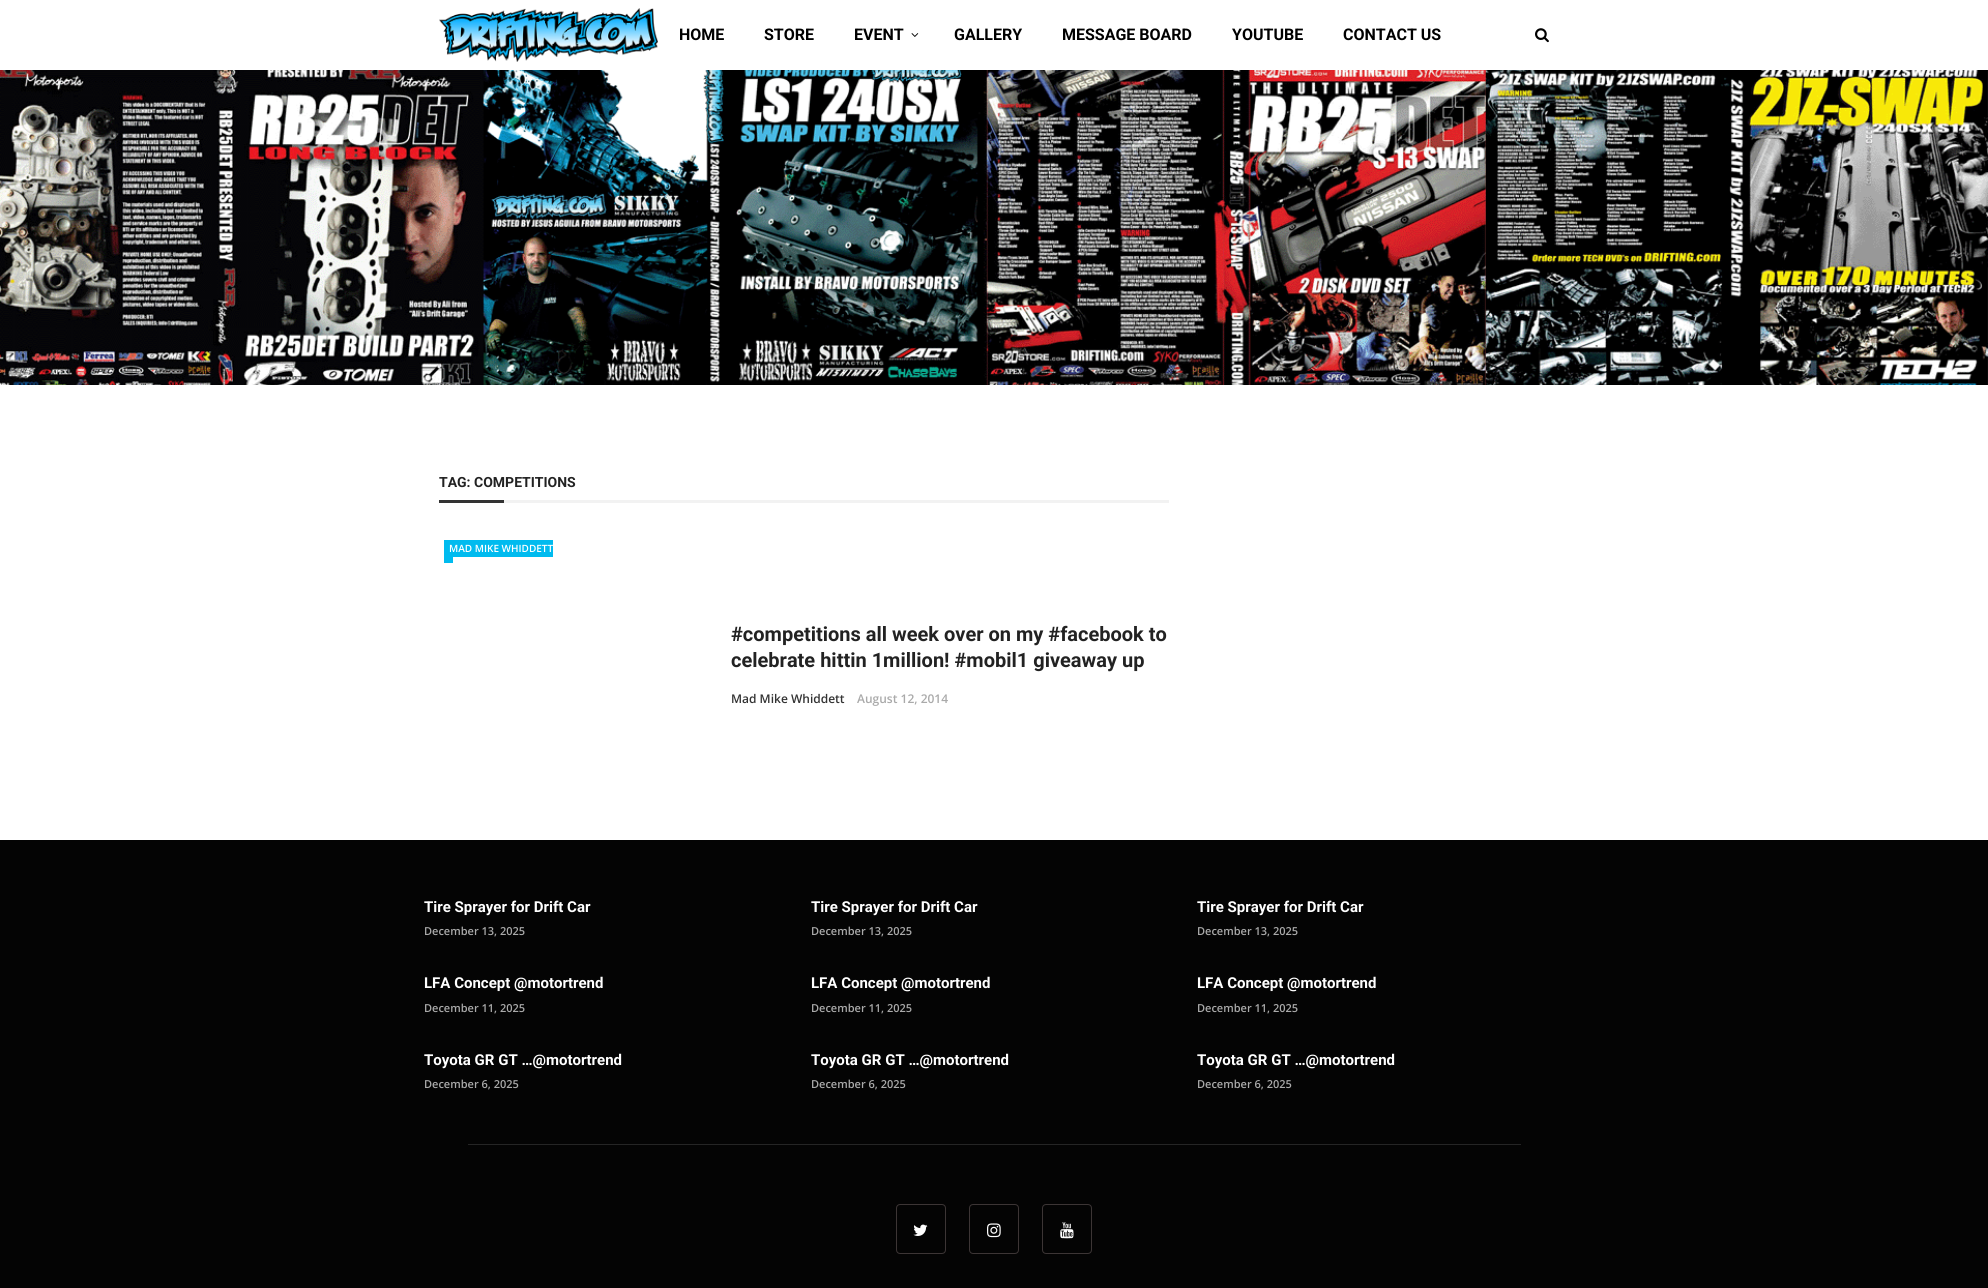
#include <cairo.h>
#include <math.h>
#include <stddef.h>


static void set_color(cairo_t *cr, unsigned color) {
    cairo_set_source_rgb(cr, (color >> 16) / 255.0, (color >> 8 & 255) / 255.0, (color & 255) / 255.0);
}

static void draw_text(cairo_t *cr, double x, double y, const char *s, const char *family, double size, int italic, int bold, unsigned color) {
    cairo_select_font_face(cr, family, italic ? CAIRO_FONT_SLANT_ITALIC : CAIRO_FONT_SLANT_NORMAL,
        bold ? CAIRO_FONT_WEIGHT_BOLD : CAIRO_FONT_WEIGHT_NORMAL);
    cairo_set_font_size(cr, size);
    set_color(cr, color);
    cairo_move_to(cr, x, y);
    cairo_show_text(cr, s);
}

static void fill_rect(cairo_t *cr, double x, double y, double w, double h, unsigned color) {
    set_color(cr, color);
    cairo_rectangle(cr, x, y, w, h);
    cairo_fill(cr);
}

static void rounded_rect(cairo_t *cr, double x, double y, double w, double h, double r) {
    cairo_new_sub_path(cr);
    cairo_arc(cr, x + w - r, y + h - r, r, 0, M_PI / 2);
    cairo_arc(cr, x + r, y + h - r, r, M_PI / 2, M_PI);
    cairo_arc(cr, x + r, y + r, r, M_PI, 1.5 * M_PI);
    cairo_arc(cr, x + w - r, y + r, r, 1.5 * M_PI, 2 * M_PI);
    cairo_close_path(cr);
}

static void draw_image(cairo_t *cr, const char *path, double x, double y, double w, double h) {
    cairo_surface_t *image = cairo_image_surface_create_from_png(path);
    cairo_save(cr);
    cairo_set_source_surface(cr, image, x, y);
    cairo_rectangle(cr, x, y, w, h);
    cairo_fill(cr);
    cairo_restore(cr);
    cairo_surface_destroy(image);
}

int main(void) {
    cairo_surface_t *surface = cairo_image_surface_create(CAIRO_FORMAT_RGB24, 1988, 1288);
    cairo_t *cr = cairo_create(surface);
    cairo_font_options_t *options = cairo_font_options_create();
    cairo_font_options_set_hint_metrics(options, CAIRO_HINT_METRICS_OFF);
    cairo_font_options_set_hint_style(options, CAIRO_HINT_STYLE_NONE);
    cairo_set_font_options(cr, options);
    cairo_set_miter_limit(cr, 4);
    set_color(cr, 0xFFFFFF);
    cairo_paint(cr);
    draw_image(cr, "assets/img1.png", 439, 8, 219, 54);
    draw_text(cr, 679, 40, "HOME", "Roboto", 16, 0, 1, 0x000000);
    draw_text(cr, 764, 40, "STORE", "Roboto", 16, 0, 1, 0x000000);
    draw_text(cr, 854, 40, "EVENT", "Roboto", 16, 0, 1, 0x000000);
    draw_image(cr, "assets/img2.png", 911, 33, 8, 4);
    draw_text(cr, 954, 40, "GALLERY", "Roboto", 16, 0, 1, 0x000000);
    draw_text(cr, 1062, 40, "MESSAGE BOARD", "Roboto", 16, 0, 1, 0x000000);
    draw_text(cr, 1232, 40, "YOUTUBE", "Roboto", 16, 0, 1, 0x000000);
    draw_text(cr, 1343, 40, "CONTACT US", "Roboto", 16, 0, 1, 0x000000);
    draw_image(cr, "assets/img3.png", 1535, 28, 14, 15);
    draw_image(cr, "assets/img4.png", 0, 70, 1988, 315);
    fill_rect(cr, 504, 500, 665, 3, 0xF2F2F2);
    draw_text(cr, 439, 487, "TAG: COMPETITIONS", "Roboto", 14, 0, 1, 0x222222);
    fill_rect(cr, 439, 500, 65, 3, 0x333333);
    fill_rect(cr, 444, 540, 109, 17, 0x00BBEF);
    draw_text(cr, 449, 552, "MAD MIKE WHIDDETT", "Open Sans SemiBold", 10, 0, 0, 0xFFFFFF);
    fill_rect(cr, 444, 557, 9, 6, 0x00BBEF);
    draw_text(cr, 731, 641, "#competitions all week over on my #facebook to", "Roboto", 20, 0, 1, 0x222222);
    draw_text(cr, 731, 667, "celebrate hittin 1million! #mobil1 giveaway up", "Roboto", 20, 0, 1, 0x222222);
    draw_text(cr, 731, 703, "Mad Mike Whiddett", "Open Sans SemiBold", 12, 0, 0, 0x333333);
    draw_text(cr, 857, 703, "August 12, 2014", "Open Sans SemiBold", 12, 0, 0, 0xAAAAAA);
    fill_rect(cr, 0, 840, 1988, 448, 0x040404);
    draw_text(cr, 424, 912, "Tire Sprayer for Drift Car", "Roboto", 15, 0, 1, 0xFFFFFF);
    draw_text(cr, 424, 935, "December 13, 2025", "Open Sans SemiBold", 11, 0, 0, 0xAAAAAA);
    draw_text(cr, 424, 988, "LFA Concept @motortrend", "Roboto", 15, 0, 1, 0xFFFFFF);
    draw_text(cr, 424, 1012, "December 11, 2025", "Open Sans SemiBold", 11, 0, 0, 0xAAAAAA);
    draw_text(cr, 424, 1065, "Toyota GR GT …@motortrend", "Roboto", 15, 0, 1, 0xFFFFFF);
    draw_text(cr, 424, 1088, "December 6, 2025", "Open Sans SemiBold", 11, 0, 0, 0xAAAAAA);
    draw_text(cr, 811, 912, "Tire Sprayer for Drift Car", "Roboto", 15, 0, 1, 0xFFFFFF);
    draw_text(cr, 811, 935, "December 13, 2025", "Open Sans SemiBold", 11, 0, 0, 0xAAAAAA);
    draw_text(cr, 811, 988, "LFA Concept @motortrend", "Roboto", 15, 0, 1, 0xFFFFFF);
    draw_text(cr, 811, 1012, "December 11, 2025", "Open Sans SemiBold", 11, 0, 0, 0xAAAAAA);
    draw_text(cr, 811, 1065, "Toyota GR GT …@motortrend", "Roboto", 15, 0, 1, 0xFFFFFF);
    draw_text(cr, 811, 1088, "December 6, 2025", "Open Sans SemiBold", 11, 0, 0, 0xAAAAAA);
    draw_text(cr, 1197, 912, "Tire Sprayer for Drift Car", "Roboto", 15, 0, 1, 0xFFFFFF);
    draw_text(cr, 1197, 935, "December 13, 2025", "Open Sans SemiBold", 11, 0, 0, 0xAAAAAA);
    draw_text(cr, 1197, 988, "LFA Concept @motortrend", "Roboto", 15, 0, 1, 0xFFFFFF);
    draw_text(cr, 1197, 1012, "December 11, 2025", "Open Sans SemiBold", 11, 0, 0, 0xAAAAAA);
    draw_text(cr, 1197, 1065, "Toyota GR GT …@motortrend", "Roboto", 15, 0, 1, 0xFFFFFF);
    draw_text(cr, 1197, 1088, "December 6, 2025", "Open Sans SemiBold", 11, 0, 0, 0xAAAAAA);
    fill_rect(cr, 468, 1144, 1053, 1, 0x252525);
    rounded_rect(cr, 896.5, 1204.5, 49, 49, 3.5);
    set_color(cr, 0x3C3535);
    cairo_set_line_width(cr, 1);
    cairo_stroke(cr);
    draw_image(cr, "assets/img5.png", 913, 1224, 15, 12);
    rounded_rect(cr, 969.5, 1204.5, 49, 49, 3.5);
    cairo_stroke(cr);
    draw_image(cr, "assets/img6.png", 987, 1223, 14, 15);
    rounded_rect(cr, 1042.5, 1204.5, 49, 49, 3.5);
    cairo_stroke(cr);
    draw_image(cr, "assets/img7.png", 1060, 1222, 14, 17);
    cairo_surface_write_to_png(surface, "output.png");
    cairo_font_options_destroy(options);
    cairo_destroy(cr);
    cairo_surface_destroy(surface);
    return 0;
}
